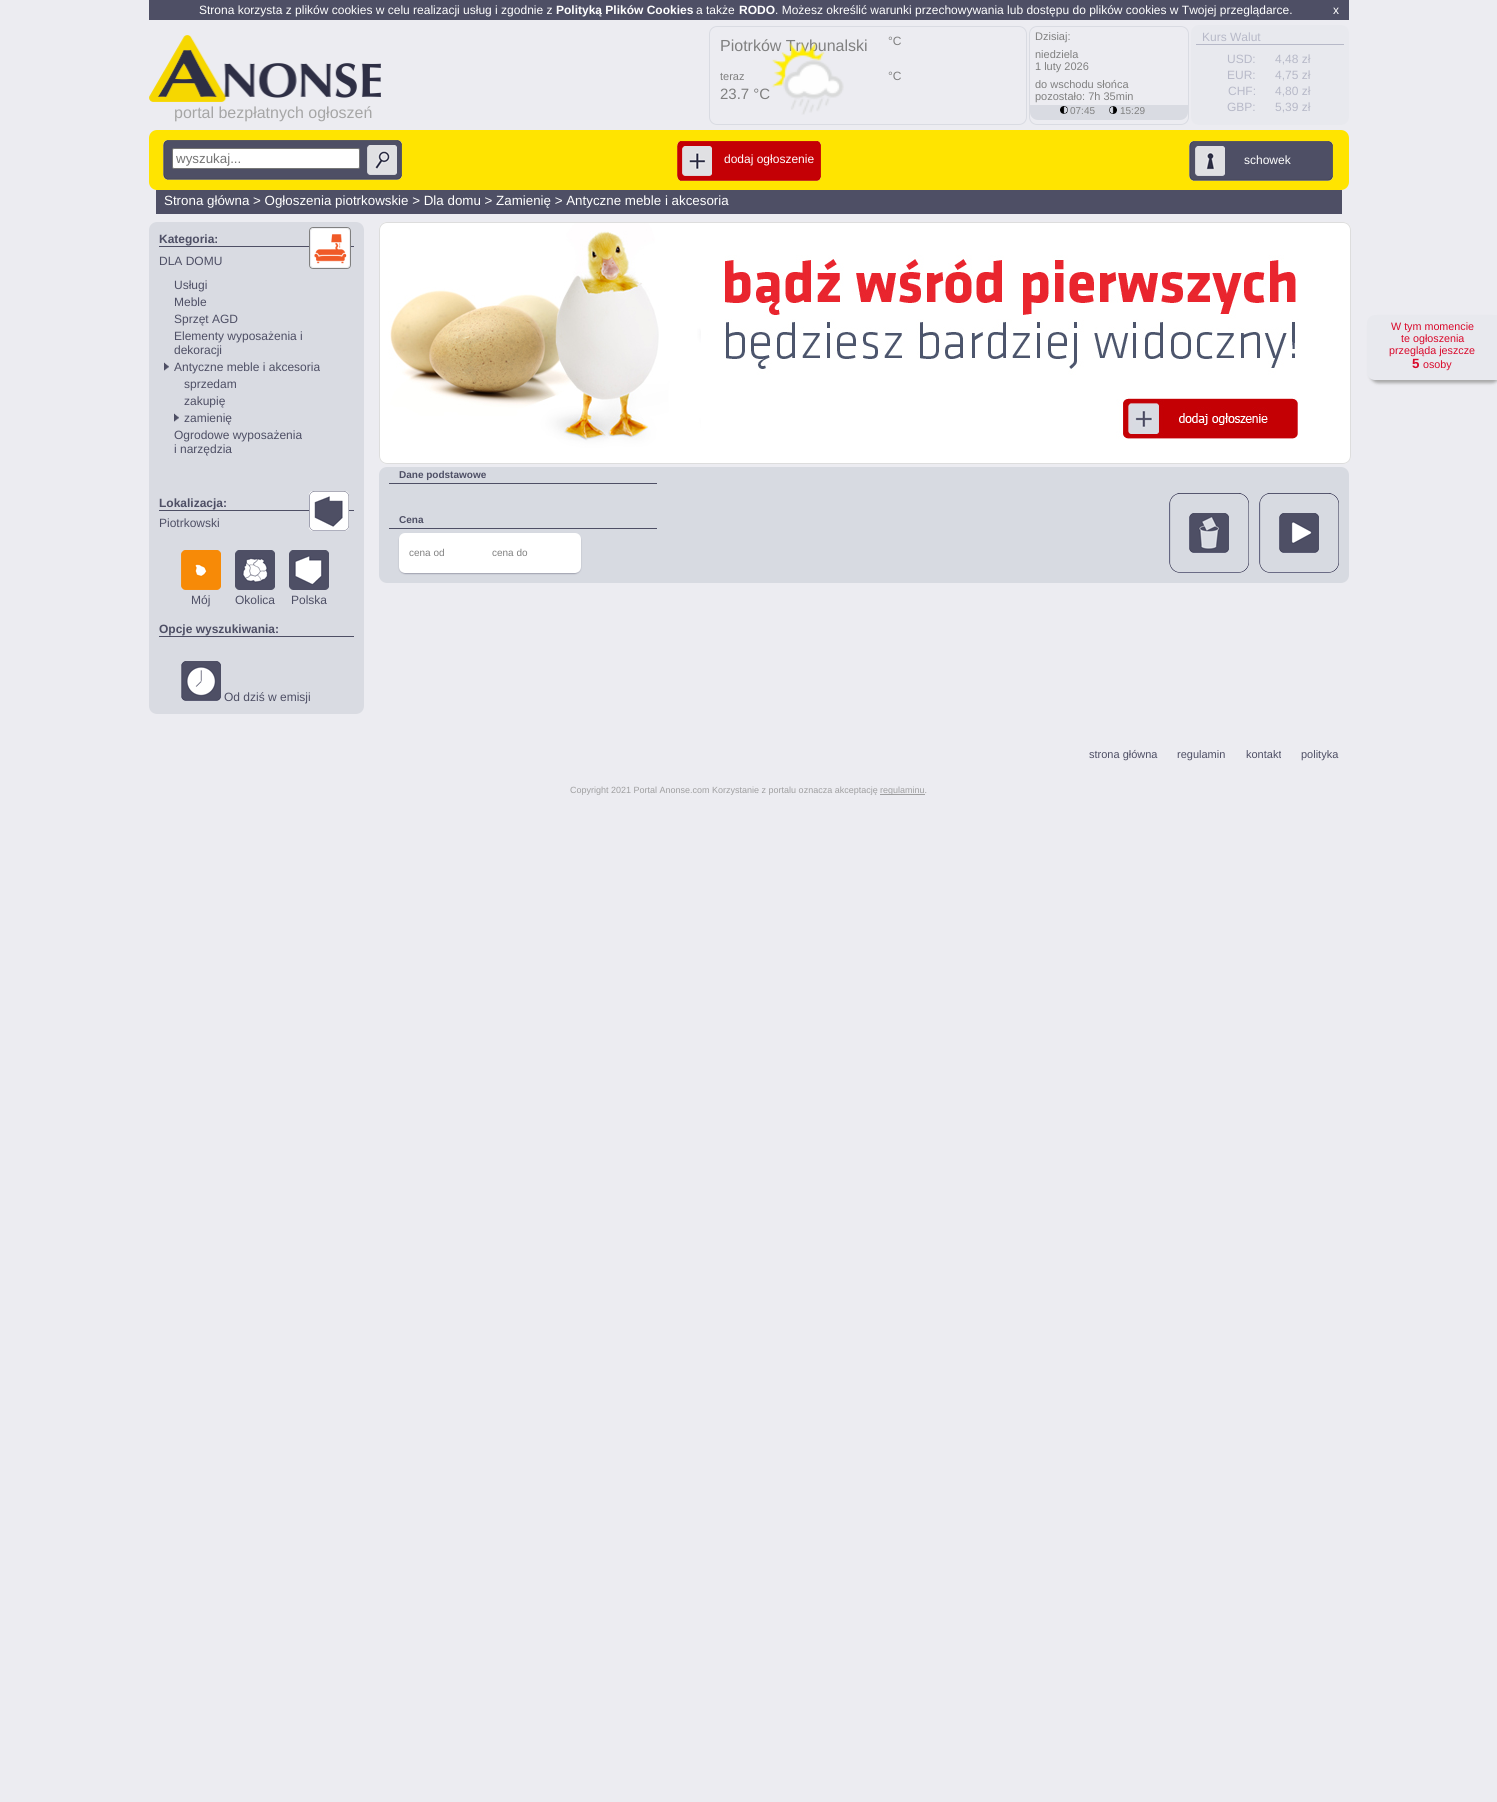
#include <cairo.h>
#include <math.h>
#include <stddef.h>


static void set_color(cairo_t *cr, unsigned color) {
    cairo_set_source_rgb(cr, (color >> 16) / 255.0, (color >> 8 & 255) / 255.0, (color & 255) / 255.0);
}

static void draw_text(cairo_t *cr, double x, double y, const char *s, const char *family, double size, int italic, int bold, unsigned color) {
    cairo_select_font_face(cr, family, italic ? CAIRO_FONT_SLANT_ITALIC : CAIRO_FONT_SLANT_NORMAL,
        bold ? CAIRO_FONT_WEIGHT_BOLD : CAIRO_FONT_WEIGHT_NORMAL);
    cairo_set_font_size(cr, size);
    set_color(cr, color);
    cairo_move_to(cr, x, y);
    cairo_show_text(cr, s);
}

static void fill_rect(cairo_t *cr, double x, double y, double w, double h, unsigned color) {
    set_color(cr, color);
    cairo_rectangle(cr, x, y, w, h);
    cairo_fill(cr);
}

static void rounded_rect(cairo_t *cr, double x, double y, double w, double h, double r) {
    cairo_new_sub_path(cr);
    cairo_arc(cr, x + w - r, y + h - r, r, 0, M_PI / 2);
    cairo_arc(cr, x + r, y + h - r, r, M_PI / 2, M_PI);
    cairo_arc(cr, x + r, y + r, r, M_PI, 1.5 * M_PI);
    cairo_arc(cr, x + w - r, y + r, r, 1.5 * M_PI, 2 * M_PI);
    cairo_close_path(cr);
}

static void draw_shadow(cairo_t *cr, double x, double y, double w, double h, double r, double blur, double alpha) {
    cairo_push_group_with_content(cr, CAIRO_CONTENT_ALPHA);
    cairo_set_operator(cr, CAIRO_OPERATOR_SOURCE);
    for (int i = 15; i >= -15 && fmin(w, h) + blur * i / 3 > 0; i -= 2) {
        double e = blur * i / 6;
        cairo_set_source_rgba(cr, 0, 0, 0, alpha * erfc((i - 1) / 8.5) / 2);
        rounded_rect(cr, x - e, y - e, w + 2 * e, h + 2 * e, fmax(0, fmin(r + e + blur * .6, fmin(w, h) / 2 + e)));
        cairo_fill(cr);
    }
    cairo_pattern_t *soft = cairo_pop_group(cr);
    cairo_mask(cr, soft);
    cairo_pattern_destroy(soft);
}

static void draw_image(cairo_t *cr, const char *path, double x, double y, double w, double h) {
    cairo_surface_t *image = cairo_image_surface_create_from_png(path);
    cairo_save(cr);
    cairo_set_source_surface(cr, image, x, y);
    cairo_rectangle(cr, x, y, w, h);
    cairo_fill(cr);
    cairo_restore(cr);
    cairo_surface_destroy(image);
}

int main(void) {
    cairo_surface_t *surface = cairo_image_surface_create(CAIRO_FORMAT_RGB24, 1497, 1802);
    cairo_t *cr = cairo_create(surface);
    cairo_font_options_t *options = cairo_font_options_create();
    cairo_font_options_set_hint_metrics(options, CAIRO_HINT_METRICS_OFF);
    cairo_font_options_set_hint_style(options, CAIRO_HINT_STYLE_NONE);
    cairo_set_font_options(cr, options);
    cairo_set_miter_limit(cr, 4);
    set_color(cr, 0xECECF1);
    cairo_paint(cr);
    fill_rect(cr, 149, 0, 1200, 20, 0x4E4F65);
    draw_text(cr, 199, 14, "Strona korzysta z plików cookies w celu realizacji usług i zgodnie z", "Liberation Sans", 12, 0, 0, 0xFFFFFF);
    draw_text(cr, 556, 14, "Polityką Plików Cookies", "Liberation Sans", 12, 0, 1, 0xFFFFFF);
    draw_text(cr, 696, 14, "a także", "Liberation Sans", 12, 0, 0, 0xFFFFFF);
    draw_text(cr, 739, 14, "RODO", "Liberation Sans", 12, 0, 1, 0xFFFFFF);
    draw_text(cr, 775, 14, ". Możesz określić warunki przechowywania lub dostępu do plików cookies w Twojej przeglądarce.", "Liberation Sans", 12, 0, 0, 0xFFFFFF);
    draw_text(cr, 1333, 14, "x", "Liberation Sans", 12, 0, 0, 0xFFFFFF);
    rounded_rect(cr, 709.5, 26.5, 317, 98, 7.5);
    set_color(cr, 0xD9DBE2);
    cairo_set_line_width(cr, 1);
    cairo_stroke(cr);
    draw_text(cr, 720, 51, "Piotrków Trybunalski", "Liberation Sans", 16, 0, 0, 0x808080);
    draw_text(cr, 888, 45, "°C", "Liberation Sans", 12, 0, 0, 0x808080);
    draw_text(cr, 888, 80, "°C", "Liberation Sans", 12, 0, 0, 0x808080);
    draw_text(cr, 720, 80, "teraz", "Liberation Sans", 11, 0, 0, 0x808080);
    draw_image(cr, "assets/img1.png", 771, 42, 73, 73);
    draw_text(cr, 720, 99, "23.7 °C", "Liberation Sans", 15, 0, 0, 0x808080);
    rounded_rect(cr, 1029.5, 26.5, 159, 98, 7.5);
    set_color(cr, 0xD9DBE2);
    cairo_stroke(cr);
    draw_text(cr, 1035, 40, "Dzisiaj:", "Liberation Sans", 11, 0, 0, 0x808080);
    draw_text(cr, 1035, 58, "niedziela", "Liberation Sans", 11, 0, 0, 0x808080);
    draw_text(cr, 1035, 70, "1 luty 2026", "Liberation Sans", 11, 0, 0, 0x808080);
    draw_text(cr, 1035, 88, "do wschodu słońca", "Liberation Sans", 11, 0, 0, 0x808080);
    draw_text(cr, 1035, 100, "pozostało: 7h 35min", "Liberation Sans", 11, 0, 0, 0x808080);
    set_color(cr, 0xD9DBE2);
    cairo_new_path(cr);
    cairo_move_to(cr, 1030, 105);
    cairo_line_to(cr, 1188, 105);
    cairo_line_to(cr, 1188, 112);
    cairo_curve_to(cr, 1188, 116.5, 1184.5, 120, 1180, 120);
    cairo_line_to(cr, 1038, 120);
    cairo_curve_to(cr, 1033.5, 120, 1030, 116.5, 1030, 112);
    cairo_close_path(cr);
    cairo_fill(cr);
    draw_image(cr, "assets/img2.png", 1060, 106, 8, 8);
    draw_text(cr, 1070, 114, "07:45", "Liberation Sans", 10, 0, 0, 0x808080);
    draw_image(cr, "assets/img3.png", 1109, 106, 8, 8);
    draw_text(cr, 1120, 114, "15:29", "Liberation Sans", 10, 0, 0, 0x808080);
    set_color(cr, 0xE8E9EE);
    rounded_rect(cr, 1191, 25, 158, 100, 8);
    cairo_fill(cr);
    fill_rect(cr, 1196, 44, 148, 1, 0xB7B9C8);
    draw_text(cr, 1202, 41, "Kurs Walut", "Liberation Sans", 12, 0, 0, 0xB7B9C8);
    draw_text(cr, 1227, 63, "USD:", "Liberation Sans", 12, 0, 0, 0xB7B9C8);
    draw_text(cr, 1275, 63, "4,48 zł", "Liberation Sans", 12, 0, 0, 0xB7B9C8);
    draw_text(cr, 1227, 79, "EUR:", "Liberation Sans", 12, 0, 0, 0xB7B9C8);
    draw_text(cr, 1275, 79, "4,75 zł", "Liberation Sans", 12, 0, 0, 0xB7B9C8);
    draw_text(cr, 1228, 95, "CHF:", "Liberation Sans", 12, 0, 0, 0xB7B9C8);
    draw_text(cr, 1275, 95, "4,80 zł", "Liberation Sans", 12, 0, 0, 0xB7B9C8);
    draw_text(cr, 1227, 111, "GBP:", "Liberation Sans", 12, 0, 0, 0xB7B9C8);
    draw_text(cr, 1275, 111, "5,39 zł", "Liberation Sans", 12, 0, 0, 0xB7B9C8);
    draw_image(cr, "assets/img4.png", 149, 35, 232, 67);
    draw_text(cr, 174, 118, "portal bezpłatnych ogłoszeń", "Liberation Sans", 16, 0, 0, 0xA6A6A6);
    set_color(cr, 0xFFE400);
    rounded_rect(cr, 149, 130, 1200, 60, 8);
    cairo_fill(cr);
    draw_image(cr, "assets/img5.png", 163, 140, 4, 40);
    draw_image(cr, "assets/img6.png", 167, 140, 230, 40);
    set_color(cr, 0xFFFFFF);
    rounded_rect(cr, 172.5, 148.5, 187, 20, 1.5);
    cairo_fill_preserve(cr);
    set_color(cr, 0x767676);
    cairo_stroke(cr);
    draw_text(cr, 176, 163, "wyszukaj...", "Liberation Sans", 13.35, 0, 0, 0x757575);
    draw_image(cr, "assets/img7.png", 367, 145, 30, 30);
    draw_image(cr, "assets/img8.png", 397, 140, 5, 40);
    draw_image(cr, "assets/img9.png", 677, 141, 3, 40);
    draw_image(cr, "assets/img10.png", 680, 141, 137, 40);
    draw_image(cr, "assets/img11.png", 682, 146, 30, 30);
    draw_text(cr, 724, 163, "dodaj ogłoszenie", "Liberation Sans", 12, 0, 0, 0xFFFFFF);
    draw_image(cr, "assets/img12.png", 817, 141, 4, 40);
    draw_image(cr, "assets/img5.png", 1189, 141, 4, 40);
    draw_image(cr, "assets/img13.png", 1193, 141, 135, 40);
    draw_image(cr, "assets/img14.png", 1195, 146, 30, 30);
    draw_text(cr, 1244, 164, "schowek", "Liberation Sans", 12, 0, 0, 0xFFFFFF);
    draw_image(cr, "assets/img8.png", 1328, 141, 5, 40);
    fill_rect(cr, 156, 190, 1186, 24, 0x4E4F65);
    draw_text(cr, 164, 205, "Strona główna > Ogłoszenia piotrkowskie > Dla domu > Zamienię > Antyczne meble i akcesoria", "Liberation Sans", 13.35, 0, 0, 0xFFFFFF);
    set_color(cr, 0xD9DBE2);
    rounded_rect(cr, 149, 222, 215, 492, 8);
    cairo_fill(cr);
    fill_rect(cr, 159, 246, 195, 1, 0x4E4F65);
    draw_text(cr, 159, 243, "Kategoria:", "Liberation Sans", 12, 0, 1, 0x4E4F65);
    set_color(cr, 0xFFFFFF);
    rounded_rect(cr, 309.5, 227.5, 41, 41, 3.5);
    cairo_fill_preserve(cr);
    set_color(cr, 0x808080);
    cairo_stroke(cr);
    draw_image(cr, "assets/img15.png", 310, 228, 40, 40);
    draw_text(cr, 159, 265, "DLA DOMU", "Liberation Sans", 12, 0, 0, 0x4E4F65);
    draw_text(cr, 174, 289, "Usługi", "Liberation Sans", 12, 0, 0, 0x4E4F65);
    draw_text(cr, 174, 306, "Meble", "Liberation Sans", 12, 0, 0, 0x4E4F65);
    draw_text(cr, 174, 323, "Sprzęt AGD", "Liberation Sans", 12, 0, 0, 0x4E4F65);
    draw_text(cr, 174, 340, "Elementy wyposażenia i", "Liberation Sans", 12, 0, 0, 0x4E4F65);
    draw_text(cr, 174, 354, "dekoracji", "Liberation Sans", 12, 0, 0, 0x4E4F65);
    draw_image(cr, "assets/img16.png", 164, 362, 5, 9);
    draw_text(cr, 174, 371, "Antyczne meble i akcesoria", "Liberation Sans", 12, 0, 0, 0x4E4F65);
    draw_text(cr, 184, 388, "sprzedam", "Liberation Sans", 12, 0, 0, 0x4E4F65);
    draw_text(cr, 184, 405, "zakupię", "Liberation Sans", 12, 0, 0, 0x4E4F65);
    draw_image(cr, "assets/img16.png", 174, 413, 5, 9);
    draw_text(cr, 184, 422, "zamienię", "Liberation Sans", 12, 0, 0, 0x4E4F65);
    draw_text(cr, 174, 439, "Ogrodowe wyposażenia", "Liberation Sans", 12, 0, 0, 0x4E4F65);
    draw_text(cr, 174, 453, "i narzędzia", "Liberation Sans", 12, 0, 0, 0x4E4F65);
    fill_rect(cr, 159, 510, 195, 1, 0x4E4F65);
    draw_text(cr, 159, 507, "Lokalizacja:", "Liberation Sans", 12, 0, 1, 0x4E4F65);
    set_color(cr, 0xFFFFFF);
    rounded_rect(cr, 309, 491, 40, 40, 4);
    cairo_fill(cr);
    draw_image(cr, "assets/img17.png", 309, 491, 40, 40);
    draw_text(cr, 159, 527, "Piotrkowski", "Liberation Sans", 12, 0, 0, 0x4E4F65);
    draw_image(cr, "assets/img18.png", 181, 550, 40, 40);
    draw_text(cr, 191, 604, "Mój", "Liberation Sans", 12, 0, 0, 0x4E4F65);
    draw_image(cr, "assets/img19.png", 235, 550, 40, 40);
    draw_text(cr, 235, 604, "Okolica", "Liberation Sans", 12, 0, 0, 0x4E4F65);
    draw_image(cr, "assets/img20.png", 289, 550, 40, 40);
    draw_text(cr, 291, 604, "Polska", "Liberation Sans", 12, 0, 0, 0x4E4F65);
    fill_rect(cr, 159, 636, 195, 1, 0x4E4F65);
    draw_text(cr, 159, 633, "Opcje wyszukiwania:", "Liberation Sans", 12, 0, 1, 0x4E4F65);
    draw_image(cr, "assets/img21.png", 181, 661, 40, 40);
    draw_text(cr, 224, 701, "Od dziś w emisji", "Liberation Sans", 12, 0, 0, 0x4E4F65);
    set_color(cr, 0xA9A9A9);
    draw_shadow(cr, 1370, 318, 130, 65, 8, 1.5, 1);
    set_color(cr, 0xE8E9EE);
    cairo_new_path(cr);
    cairo_move_to(cr, 1375, 315);
    cairo_line_to(cr, 1497, 315);
    cairo_line_to(cr, 1497, 380);
    cairo_line_to(cr, 1375, 380);
    cairo_curve_to(cr, 1370.5, 380, 1367, 376.5, 1367, 372);
    cairo_line_to(cr, 1367, 323);
    cairo_curve_to(cr, 1367, 318.5, 1370.5, 315, 1375, 315);
    cairo_close_path(cr);
    cairo_fill(cr);
    draw_text(cr, 1391, 330, "W tym momencie", "Liberation Sans", 10.75, 0, 0, 0xD9092B);
    draw_text(cr, 1401, 342, "te ogłoszenia", "Liberation Sans", 10.75, 0, 0, 0xD9092B);
    draw_text(cr, 1389, 354, "przegląda jeszcze", "Liberation Sans", 10.75, 0, 0, 0xD9092B);
    draw_text(cr, 1412, 368, "5", "Liberation Sans", 13.35, 0, 1, 0xD9092B);
    draw_text(cr, 1423, 368, "osoby", "Liberation Sans", 10.75, 0, 0, 0xD9092B);
    draw_image(cr, "assets/img22.png", 379, 222, 972, 242);
    rounded_rect(cr, 379.5, 222.5, 971, 241, 7.5);
    set_color(cr, 0xDDDDDD);
    cairo_stroke(cr);
    set_color(cr, 0xD7DAE1);
    rounded_rect(cr, 379, 467, 970, 116, 8);
    cairo_fill(cr);
    fill_rect(cr, 389, 483, 268, 1, 0x4E4F65);
    draw_text(cr, 399, 478, "Dane podstawowe", "Liberation Sans", 10, 0, 1, 0x4E4F65);
    fill_rect(cr, 389, 528, 268, 1, 0x4E4F65);
    draw_text(cr, 399, 523, "Cena", "Liberation Sans", 10, 0, 1, 0x4E4F65);
    set_color(cr, 0x505167);
    draw_shadow(cr, 400, 535, 180, 38, 5, 1, 1);
    set_color(cr, 0xFFFFFF);
    rounded_rect(cr, 399, 533, 182, 40, 6);
    cairo_fill(cr);
    draw_text(cr, 409, 556, "cena od", "Liberation Sans", 10, 0, 0, 0x808080);
    draw_text(cr, 492, 556, "cena do", "Liberation Sans", 10, 0, 0, 0x808080);
    draw_image(cr, "assets/img23.png", 1169, 493, 80, 80);
    draw_image(cr, "assets/img24.png", 1189, 513, 40, 40);
    draw_image(cr, "assets/img23.png", 1259, 493, 80, 80);
    draw_image(cr, "assets/img25.png", 1279, 513, 40, 40);
    draw_text(cr, 1089, 758, "strona główna", "Liberation Sans", 11, 0, 0, 0x4E4F65);
    draw_text(cr, 1177, 758, "regulamin", "Liberation Sans", 11, 0, 0, 0x4E4F65);
    draw_text(cr, 1246, 758, "kontakt", "Liberation Sans", 11, 0, 0, 0x4E4F65);
    draw_text(cr, 1301, 758, "polityka", "Liberation Sans", 11, 0, 0, 0x4E4F65);
    draw_text(cr, 570, 793, "Copyright 2021 Portal Anonse.com Korzystanie z portalu oznacza akceptację", "Liberation Sans", 9, 0, 0, 0x9F9FA0);
    fill_rect(cr, 880, 794, 45, 1, 0x9F9FA0);
    draw_text(cr, 880, 793, "regulaminu.", "Liberation Sans", 9, 0, 0, 0x9F9FA0);
    cairo_surface_write_to_png(surface, "output.png");
    cairo_font_options_destroy(options);
    cairo_destroy(cr);
    cairo_surface_destroy(surface);
    return 0;
}
